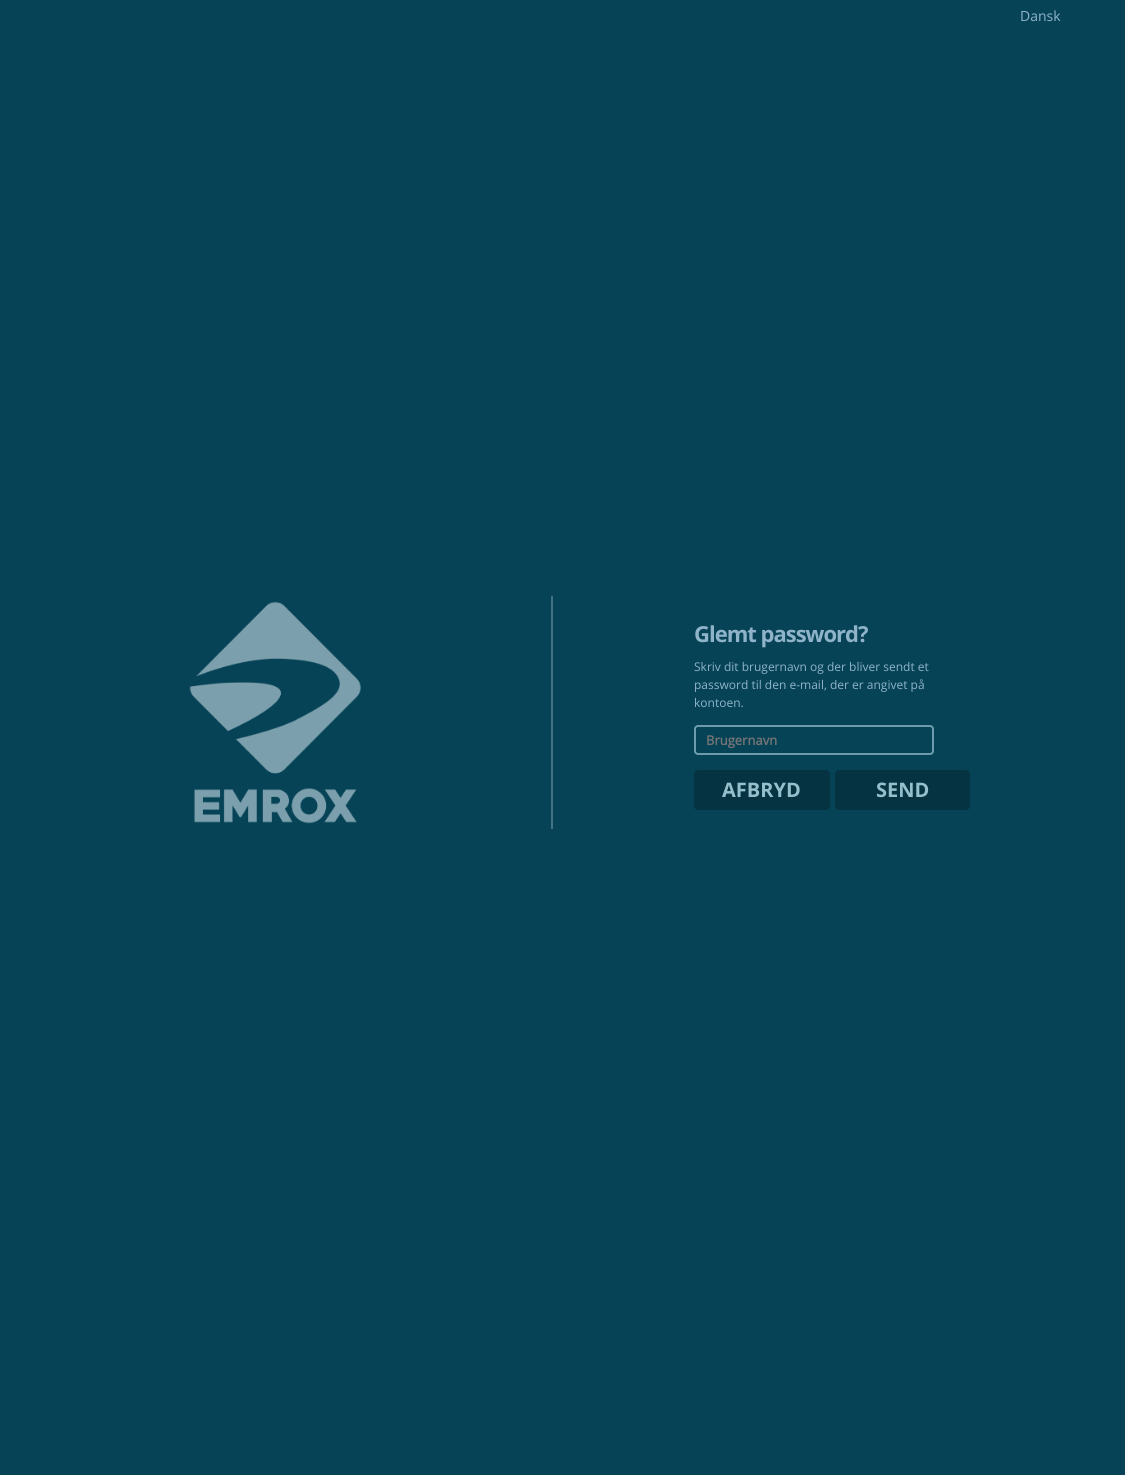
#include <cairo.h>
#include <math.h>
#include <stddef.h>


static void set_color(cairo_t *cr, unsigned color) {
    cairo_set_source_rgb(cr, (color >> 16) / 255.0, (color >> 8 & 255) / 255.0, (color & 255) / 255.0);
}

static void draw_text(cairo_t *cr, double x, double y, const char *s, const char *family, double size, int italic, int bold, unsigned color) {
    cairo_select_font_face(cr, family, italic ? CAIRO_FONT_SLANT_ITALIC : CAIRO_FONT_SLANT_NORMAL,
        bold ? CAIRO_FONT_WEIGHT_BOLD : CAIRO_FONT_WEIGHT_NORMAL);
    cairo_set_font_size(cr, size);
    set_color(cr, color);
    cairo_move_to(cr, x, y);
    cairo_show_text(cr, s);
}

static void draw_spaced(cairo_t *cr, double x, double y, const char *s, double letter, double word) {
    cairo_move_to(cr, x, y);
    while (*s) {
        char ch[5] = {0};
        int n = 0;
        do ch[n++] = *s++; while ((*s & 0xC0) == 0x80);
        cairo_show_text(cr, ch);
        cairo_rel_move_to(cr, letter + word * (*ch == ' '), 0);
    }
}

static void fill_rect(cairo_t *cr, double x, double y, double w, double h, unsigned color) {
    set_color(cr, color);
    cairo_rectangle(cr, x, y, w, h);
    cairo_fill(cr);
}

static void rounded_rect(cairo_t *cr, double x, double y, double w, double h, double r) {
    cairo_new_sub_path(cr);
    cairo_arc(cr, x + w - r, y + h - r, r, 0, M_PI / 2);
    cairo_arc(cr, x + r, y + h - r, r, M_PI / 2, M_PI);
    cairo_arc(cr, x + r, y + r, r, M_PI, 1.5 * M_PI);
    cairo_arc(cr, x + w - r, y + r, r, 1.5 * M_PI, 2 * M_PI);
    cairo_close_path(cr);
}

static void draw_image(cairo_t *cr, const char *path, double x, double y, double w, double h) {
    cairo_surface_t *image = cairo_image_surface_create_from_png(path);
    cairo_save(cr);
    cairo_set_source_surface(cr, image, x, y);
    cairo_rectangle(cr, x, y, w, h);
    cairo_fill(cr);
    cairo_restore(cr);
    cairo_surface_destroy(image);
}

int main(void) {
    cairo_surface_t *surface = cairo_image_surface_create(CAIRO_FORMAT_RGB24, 1125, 1475);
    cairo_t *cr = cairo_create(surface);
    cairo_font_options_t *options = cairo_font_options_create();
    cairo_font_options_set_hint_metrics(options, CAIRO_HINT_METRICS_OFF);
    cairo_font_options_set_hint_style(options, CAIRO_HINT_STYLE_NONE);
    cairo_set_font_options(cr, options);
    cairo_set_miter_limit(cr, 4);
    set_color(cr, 0x064357);
    cairo_paint(cr);
    draw_text(cr, 1020, 21, "Dansk", "Open Sans", 14, 0, 0, 0x8FB3C8);
    fill_rect(cr, 551, 596, 2, 233, 0x437383);
    draw_image(cr, "assets/img1.png", 189, 601, 172, 223);
    cairo_select_font_face(cr, "Open Sans", CAIRO_FONT_SLANT_NORMAL, CAIRO_FONT_WEIGHT_BOLD);
    cairo_set_font_size(cr, 22);
    set_color(cr, 0x8FB3C8);
    draw_spaced(cr, 694, 642, "Glemt password?", -1, 0);
    draw_text(cr, 694, 671, "Skriv dit brugernavn og der bliver sendt et", "Open Sans", 12, 0, 0, 0x8FB3C8);
    draw_text(cr, 694, 689, "password til den e-mail, der er angivet på", "Open Sans", 12, 0, 0, 0x8FB3C8);
    draw_text(cr, 694, 707, "kontoen.", "Open Sans", 12, 0, 0, 0x8FB3C8);
    rounded_rect(cr, 695, 726, 238, 28, 3);
    set_color(cr, 0x6E9BAD);
    cairo_stroke(cr);
    draw_text(cr, 706, 745, "Brugernavn", "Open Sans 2", 13, 0, 1, 0x757575);
    set_color(cr, 0x053342);
    rounded_rect(cr, 694, 770, 136, 40, 4);
    cairo_fill(cr);
    draw_text(cr, 722, 797, "AFBRYD", "Open Sans", 20, 0, 1, 0x96BFCC);
    set_color(cr, 0x053342);
    rounded_rect(cr, 835, 770, 135, 40, 4);
    cairo_fill(cr);
    draw_text(cr, 876, 797, "SEND", "Open Sans", 20, 0, 1, 0x96BFCC);
    cairo_surface_write_to_png(surface, "output.png");
    cairo_font_options_destroy(options);
    cairo_destroy(cr);
    cairo_surface_destroy(surface);
    return 0;
}
